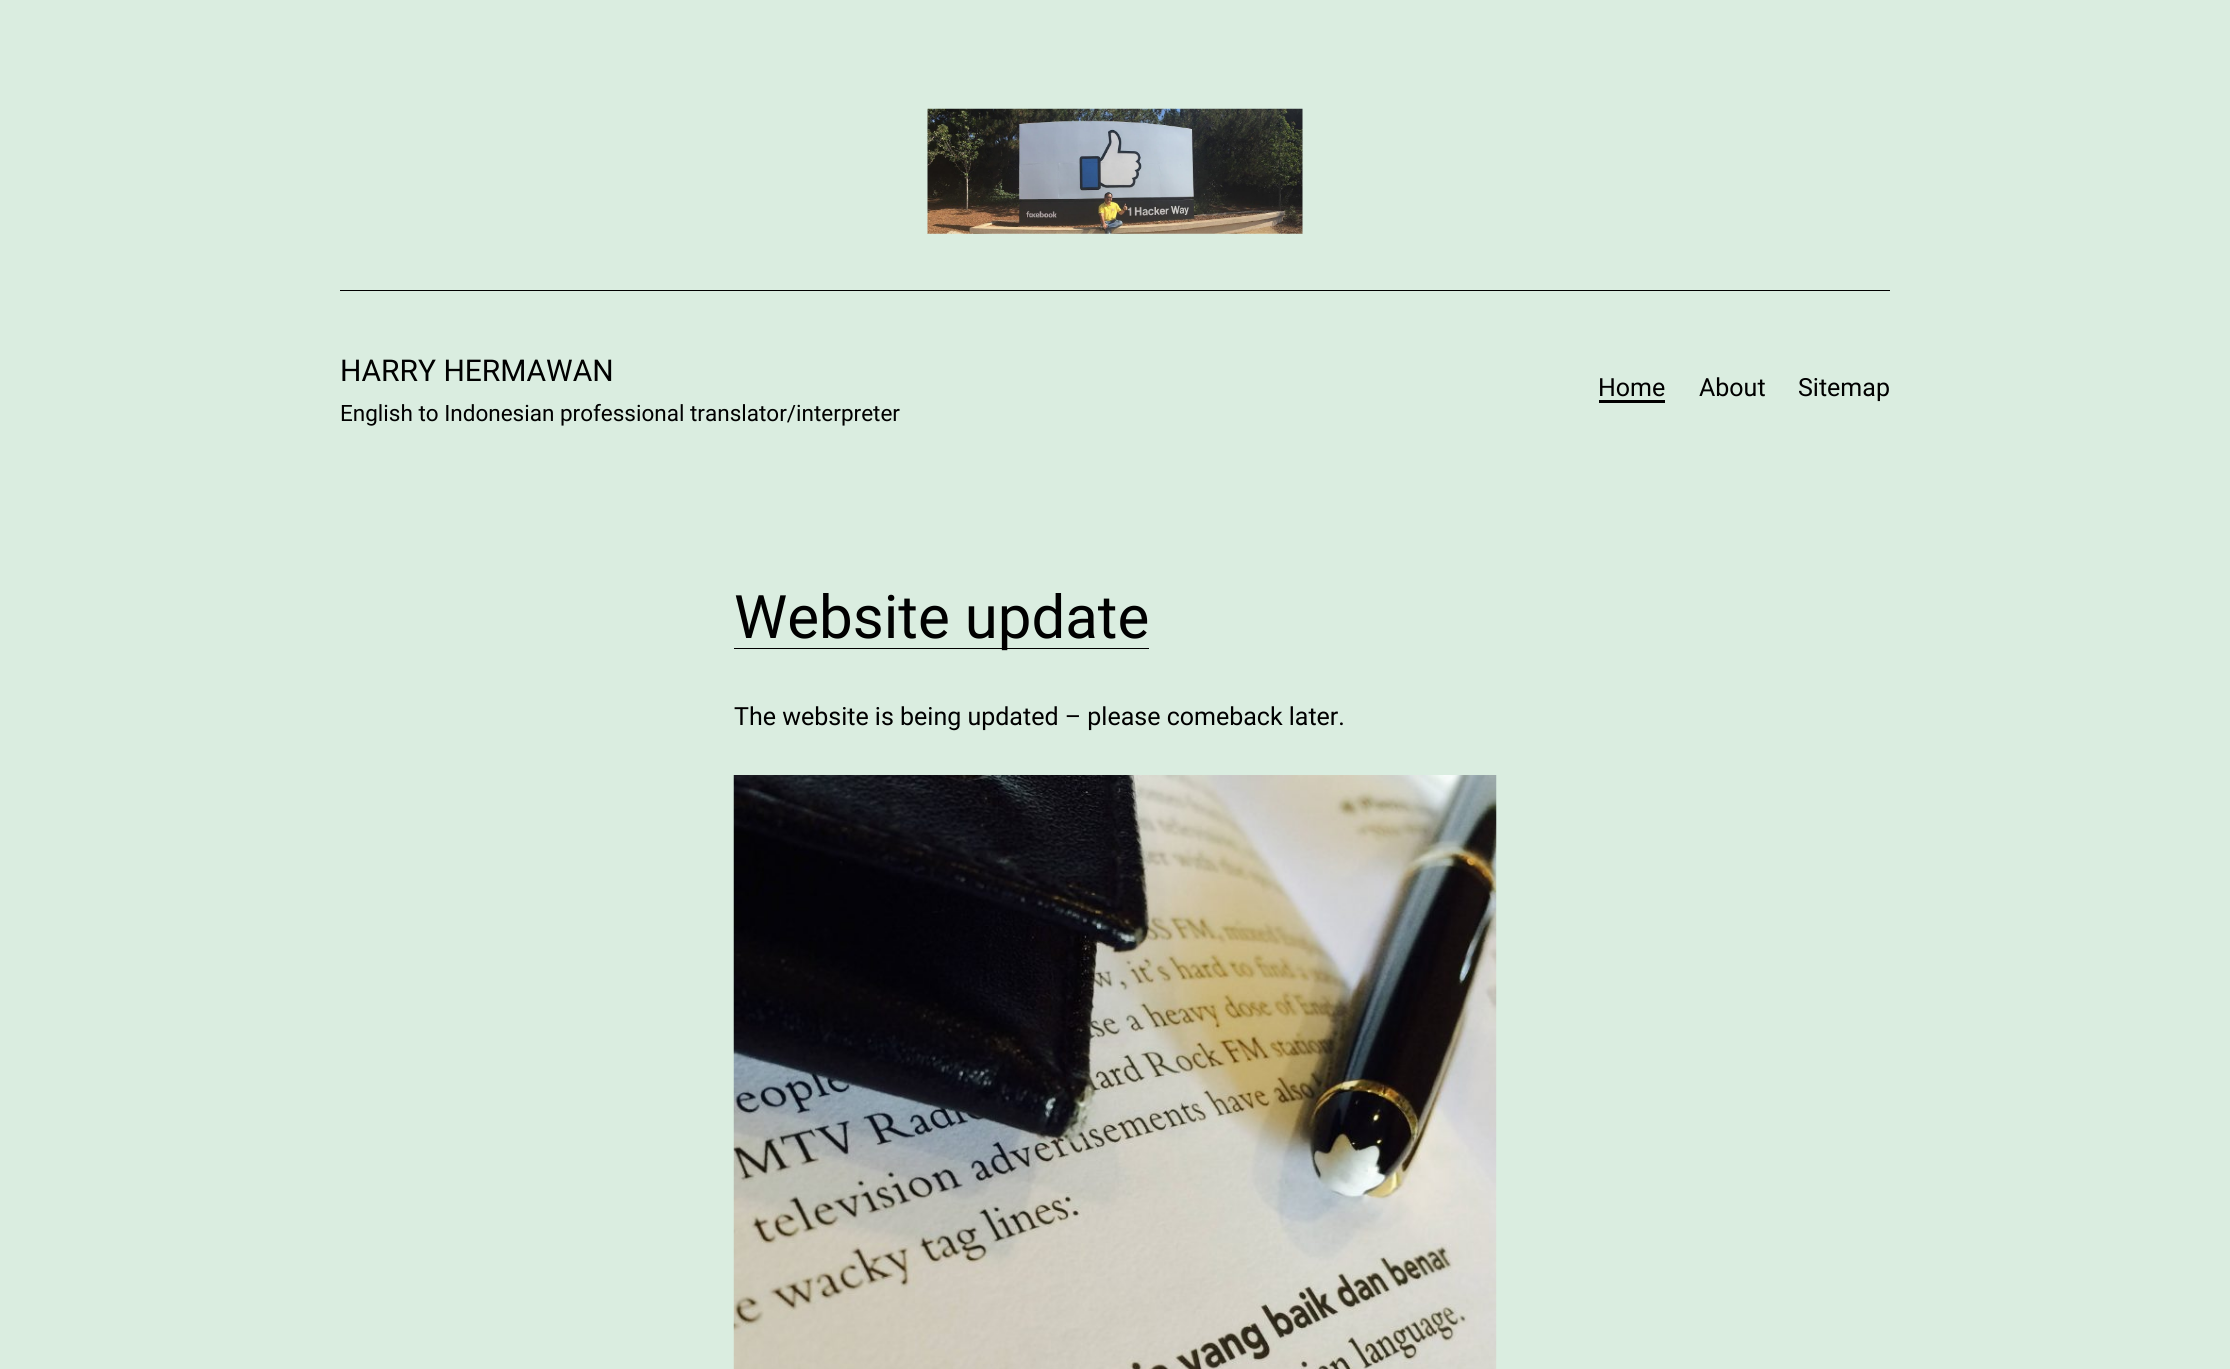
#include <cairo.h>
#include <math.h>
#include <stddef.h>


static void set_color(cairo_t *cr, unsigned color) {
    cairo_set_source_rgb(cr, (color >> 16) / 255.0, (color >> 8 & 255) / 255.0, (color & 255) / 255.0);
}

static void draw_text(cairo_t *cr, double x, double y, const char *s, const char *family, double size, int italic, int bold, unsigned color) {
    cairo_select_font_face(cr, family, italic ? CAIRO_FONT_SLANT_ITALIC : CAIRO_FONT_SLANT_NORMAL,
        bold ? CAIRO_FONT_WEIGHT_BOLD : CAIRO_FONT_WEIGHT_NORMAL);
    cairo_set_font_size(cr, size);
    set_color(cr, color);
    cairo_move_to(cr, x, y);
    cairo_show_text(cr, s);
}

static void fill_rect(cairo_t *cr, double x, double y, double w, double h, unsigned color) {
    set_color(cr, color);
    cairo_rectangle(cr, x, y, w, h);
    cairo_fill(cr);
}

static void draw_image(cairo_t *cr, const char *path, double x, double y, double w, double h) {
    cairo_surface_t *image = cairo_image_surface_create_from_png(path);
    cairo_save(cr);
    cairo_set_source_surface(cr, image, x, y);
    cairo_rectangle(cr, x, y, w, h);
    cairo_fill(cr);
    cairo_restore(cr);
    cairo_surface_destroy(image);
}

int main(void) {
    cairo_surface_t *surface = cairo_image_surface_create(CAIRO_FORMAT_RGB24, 2230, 1369);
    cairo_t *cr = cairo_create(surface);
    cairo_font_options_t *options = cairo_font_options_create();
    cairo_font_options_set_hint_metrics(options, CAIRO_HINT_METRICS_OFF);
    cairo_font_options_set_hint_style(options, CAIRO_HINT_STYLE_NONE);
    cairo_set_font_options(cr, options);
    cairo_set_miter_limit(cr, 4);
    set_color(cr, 0xDAEDE0);
    cairo_paint(cr);
    fill_rect(cr, 340, 290, 1550, 1, 0x000000);
    draw_image(cr, "assets/img1.png", 927, 108, 376, 126);
    draw_text(cr, 340, 381, "HARRY HERMAWAN", "Roboto", 30, 0, 0, 0x000000);
    draw_text(cr, 340, 421, "English to Indonesian professional translator/interpreter", "Roboto", 22.5, 0, 0, 0x000000);
    draw_text(cr, 1598, 396, "Home", "Roboto", 25, 0, 0, 0x000000);
    fill_rect(cr, 1599, 400, 66, 3, 0x000000);
    draw_text(cr, 1699, 396, "About", "Roboto", 25, 0, 0, 0x000000);
    draw_text(cr, 1798, 396, "Sitemap", "Roboto", 25, 0, 0, 0x000000);
    fill_rect(cr, 734, 648, 415, 1, 0x000000);
    draw_text(cr, 734, 638, "Website update", "Roboto", 60, 0, 0, 0x000000);
    draw_text(cr, 734, 725, "The website is being updated – please comeback later.", "Roboto", 25, 0, 0, 0x000000);
    draw_image(cr, "assets/img2.png", 733, 775, 764, 594);
    cairo_surface_write_to_png(surface, "output.png");
    cairo_font_options_destroy(options);
    cairo_destroy(cr);
    cairo_surface_destroy(surface);
    return 0;
}
